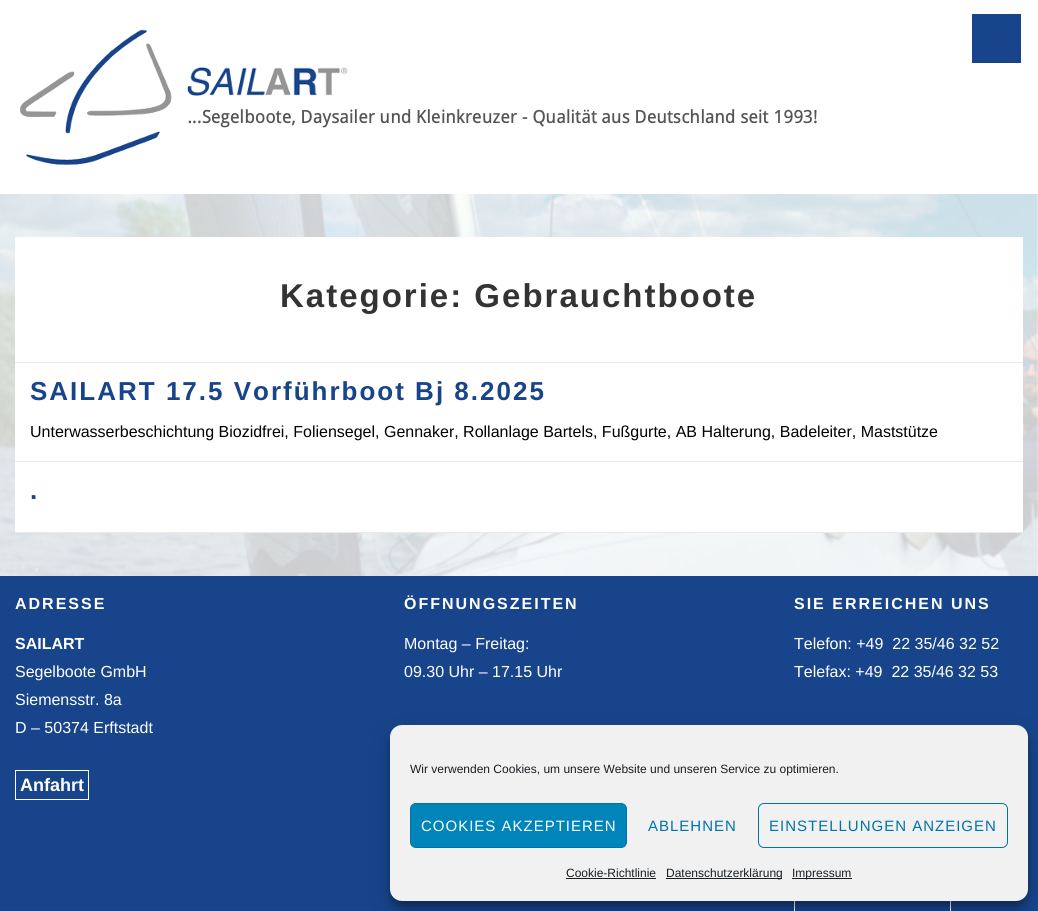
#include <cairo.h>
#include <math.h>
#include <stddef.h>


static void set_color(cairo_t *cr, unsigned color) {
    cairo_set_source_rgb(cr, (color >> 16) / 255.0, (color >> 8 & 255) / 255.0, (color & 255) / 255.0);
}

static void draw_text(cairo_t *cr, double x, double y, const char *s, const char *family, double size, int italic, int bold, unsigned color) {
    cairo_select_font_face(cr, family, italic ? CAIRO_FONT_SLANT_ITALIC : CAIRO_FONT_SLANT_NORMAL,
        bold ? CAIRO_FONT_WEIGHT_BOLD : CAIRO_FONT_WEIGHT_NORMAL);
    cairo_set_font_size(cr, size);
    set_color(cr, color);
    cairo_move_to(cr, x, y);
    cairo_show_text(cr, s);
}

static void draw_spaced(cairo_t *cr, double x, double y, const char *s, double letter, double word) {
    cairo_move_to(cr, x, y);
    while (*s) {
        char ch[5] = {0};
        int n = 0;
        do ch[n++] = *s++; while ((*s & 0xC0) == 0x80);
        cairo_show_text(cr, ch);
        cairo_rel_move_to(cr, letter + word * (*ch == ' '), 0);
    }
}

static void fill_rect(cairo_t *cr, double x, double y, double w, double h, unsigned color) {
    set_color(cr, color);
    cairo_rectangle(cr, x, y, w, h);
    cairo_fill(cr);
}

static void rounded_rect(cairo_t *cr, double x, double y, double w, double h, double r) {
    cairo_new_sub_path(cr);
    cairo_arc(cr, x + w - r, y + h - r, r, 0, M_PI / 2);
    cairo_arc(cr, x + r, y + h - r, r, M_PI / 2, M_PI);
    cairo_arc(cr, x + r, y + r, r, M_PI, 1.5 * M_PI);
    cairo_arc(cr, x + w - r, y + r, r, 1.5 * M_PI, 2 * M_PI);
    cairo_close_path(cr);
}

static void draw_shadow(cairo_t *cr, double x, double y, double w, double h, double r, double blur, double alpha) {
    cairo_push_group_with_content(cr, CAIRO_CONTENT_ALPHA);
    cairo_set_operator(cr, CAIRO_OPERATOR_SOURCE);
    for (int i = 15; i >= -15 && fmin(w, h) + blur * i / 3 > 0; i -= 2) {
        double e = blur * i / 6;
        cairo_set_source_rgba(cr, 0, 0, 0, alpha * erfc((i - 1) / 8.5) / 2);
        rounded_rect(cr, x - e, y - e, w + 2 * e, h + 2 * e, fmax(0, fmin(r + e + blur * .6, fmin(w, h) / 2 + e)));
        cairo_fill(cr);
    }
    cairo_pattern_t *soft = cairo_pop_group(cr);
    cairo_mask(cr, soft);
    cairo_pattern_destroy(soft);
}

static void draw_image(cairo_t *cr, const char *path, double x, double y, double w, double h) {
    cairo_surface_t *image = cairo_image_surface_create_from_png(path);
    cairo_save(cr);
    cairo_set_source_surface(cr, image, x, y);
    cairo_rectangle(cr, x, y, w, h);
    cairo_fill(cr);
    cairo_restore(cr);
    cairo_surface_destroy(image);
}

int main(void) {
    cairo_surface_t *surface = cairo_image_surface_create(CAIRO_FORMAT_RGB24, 1038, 911);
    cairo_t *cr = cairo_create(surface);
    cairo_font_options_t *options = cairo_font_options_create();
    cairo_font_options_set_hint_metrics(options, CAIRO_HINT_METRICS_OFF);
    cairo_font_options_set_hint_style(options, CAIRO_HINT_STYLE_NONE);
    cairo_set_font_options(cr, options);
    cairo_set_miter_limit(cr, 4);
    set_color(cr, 0xFFFFFF);
    cairo_paint(cr);
    draw_image(cr, "assets/img1.png", 0, 194, 1038, 382);
    draw_image(cr, "assets/img2.png", 20, 29, 797, 136);
    fill_rect(cr, 972, 14, 49, 49, 0x17448A);
    cairo_set_source_rgba(cr, 1, 1, 1, 0.8);
    cairo_rectangle(cr, 0, 194, 1038, 382);
    cairo_fill(cr);
    fill_rect(cr, 15, 237, 1008, 295, 0xFFFFFF);
    fill_rect(cr, 15, 362, 1008, 1, 0xEAEAEA);
    cairo_select_font_face(cr, "Liberation Sans", CAIRO_FONT_SLANT_NORMAL, CAIRO_FONT_WEIGHT_BOLD);
    cairo_set_font_size(cr, 33);
    set_color(cr, 0x333333);
    draw_spaced(cr, 280, 307, "Kategorie: Gebrauchtboote", 2, 0);
    fill_rect(cr, 15, 461, 1008, 1, 0xEAEAEA);
    cairo_set_font_size(cr, 26);
    set_color(cr, 0x17448A);
    draw_spaced(cr, 30, 400, "SAILART 17.5 Vorführboot Bj 8.2025", 2, 0);
    draw_text(cr, 30, 437, "Unterwasserbeschichtung Biozidfrei, Foliensegel, Gennaker, Rollanlage Bartels, Fußgurte, AB Halterung, Badeleiter, Maststütze", "Liberation Sans", 16, 0, 0, 0x000000);
    fill_rect(cr, 15, 532, 1008, 1, 0xEAEAEA);
    cairo_select_font_face(cr, "Liberation Sans", CAIRO_FONT_SLANT_NORMAL, CAIRO_FONT_WEIGHT_BOLD);
    cairo_set_font_size(cr, 26);
    set_color(cr, 0x17448A);
    draw_spaced(cr, 30, 499, ".", 2, 0);
    fill_rect(cr, 0, 576, 1038, 335, 0x17448A);
    cairo_set_font_size(cr, 16);
    set_color(cr, 0xFFFFFF);
    draw_spaced(cr, 15, 609, "ADRESSE", 2, 0);
    draw_text(cr, 15, 649, "SAILART", "Liberation Sans", 16, 0, 1, 0xFFFFFF);
    draw_text(cr, 15, 677, "Segelboote GmbH", "Liberation Sans", 16, 0, 0, 0xFFFFFF);
    draw_text(cr, 15, 705, "Siemensstr. 8a", "Liberation Sans", 16, 0, 0, 0xFFFFFF);
    draw_text(cr, 15, 733, "D – 50374 Erftstadt", "Liberation Sans", 16, 0, 0, 0xFFFFFF);
    cairo_rectangle(cr, 15.5, 770.5, 73, 29);
    cairo_set_line_width(cr, 1);
    cairo_stroke(cr);
    draw_text(cr, 20, 791, "Anfahrt", "Liberation Sans", 18, 0, 1, 0xFFFFFF);
    cairo_set_font_size(cr, 16);
    draw_spaced(cr, 404, 609, "ÖFFNUNGSZEITEN", 2, 0);
    draw_text(cr, 404, 649, "Montag – Freitag:", "Liberation Sans", 16, 0, 0, 0xFFFFFF);
    draw_text(cr, 404, 677, "09.30 Uhr – 17.15 Uhr", "Liberation Sans", 16, 0, 0, 0xFFFFFF);
    cairo_select_font_face(cr, "Liberation Sans", CAIRO_FONT_SLANT_NORMAL, CAIRO_FONT_WEIGHT_BOLD);
    draw_spaced(cr, 794, 609, "SIE ERREICHEN UNS", 2, 0);
    draw_text(cr, 794, 649, "Telefon: +49  22 35/46 32 52", "Liberation Sans", 16, 0, 0, 0xFFFFFF);
    draw_text(cr, 794, 677, "Telefax: +49  22 35/46 32 53", "Liberation Sans", 16, 0, 0, 0xFFFFFF);
    cairo_rectangle(cr, 794.5, 896.5, 156, 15);
    cairo_stroke(cr);
    set_color(cr, 0x000000);
    draw_shadow(cr, 390, 731, 638, 176, 12, 3, 0.23);
    draw_shadow(cr, 390, 735, 638, 176, 12, 10, 0.19);
    set_color(cr, 0xF1F1F1);
    rounded_rect(cr, 390, 725, 638, 176, 12);
    cairo_fill(cr);
    draw_text(cr, 410, 773, "Wir verwenden Cookies, um unsere Website und unseren Service zu optimieren.", "Liberation Sans", 12, 0, 0, 0x191E23);
    set_color(cr, 0x0085BA);
    rounded_rect(cr, 410.5, 803.5, 216, 44, 5.5);
    cairo_fill_preserve(cr);
    set_color(cr, 0x0073AA);
    cairo_stroke(cr);
    cairo_set_font_size(cr, 15);
    set_color(cr, 0xFFFFFF);
    draw_spaced(cr, 421, 831, "COOKIES AKZEPTIEREN", 1, 0);
    set_color(cr, 0x0073AA);
    draw_spaced(cr, 648, 831, "ABLEHNEN", 1, 0);
    rounded_rect(cr, 758.5, 803.5, 249, 44, 5.5);
    cairo_stroke(cr);
    draw_spaced(cr, 769, 831, "EINSTELLUNGEN ANZEIGEN", 1, 0);
    draw_text(cr, 566, 877, "Cookie-Richtlinie", "Liberation Sans", 12, 0, 0, 0x191E23);
    fill_rect(cr, 566, 878, 90, 1, 0x191E23);
    fill_rect(cr, 666, 878, 116, 1, 0x191E23);
    draw_text(cr, 666, 877, "Datenschutzerklärung", "Liberation Sans", 12, 0, 0, 0x191E23);
    fill_rect(cr, 792, 878, 60, 1, 0x191E23);
    draw_text(cr, 792, 877, "Impressum", "Liberation Sans", 12, 0, 0, 0x191E23);
    cairo_surface_write_to_png(surface, "output.png");
    cairo_font_options_destroy(options);
    cairo_destroy(cr);
    cairo_surface_destroy(surface);
    return 0;
}
